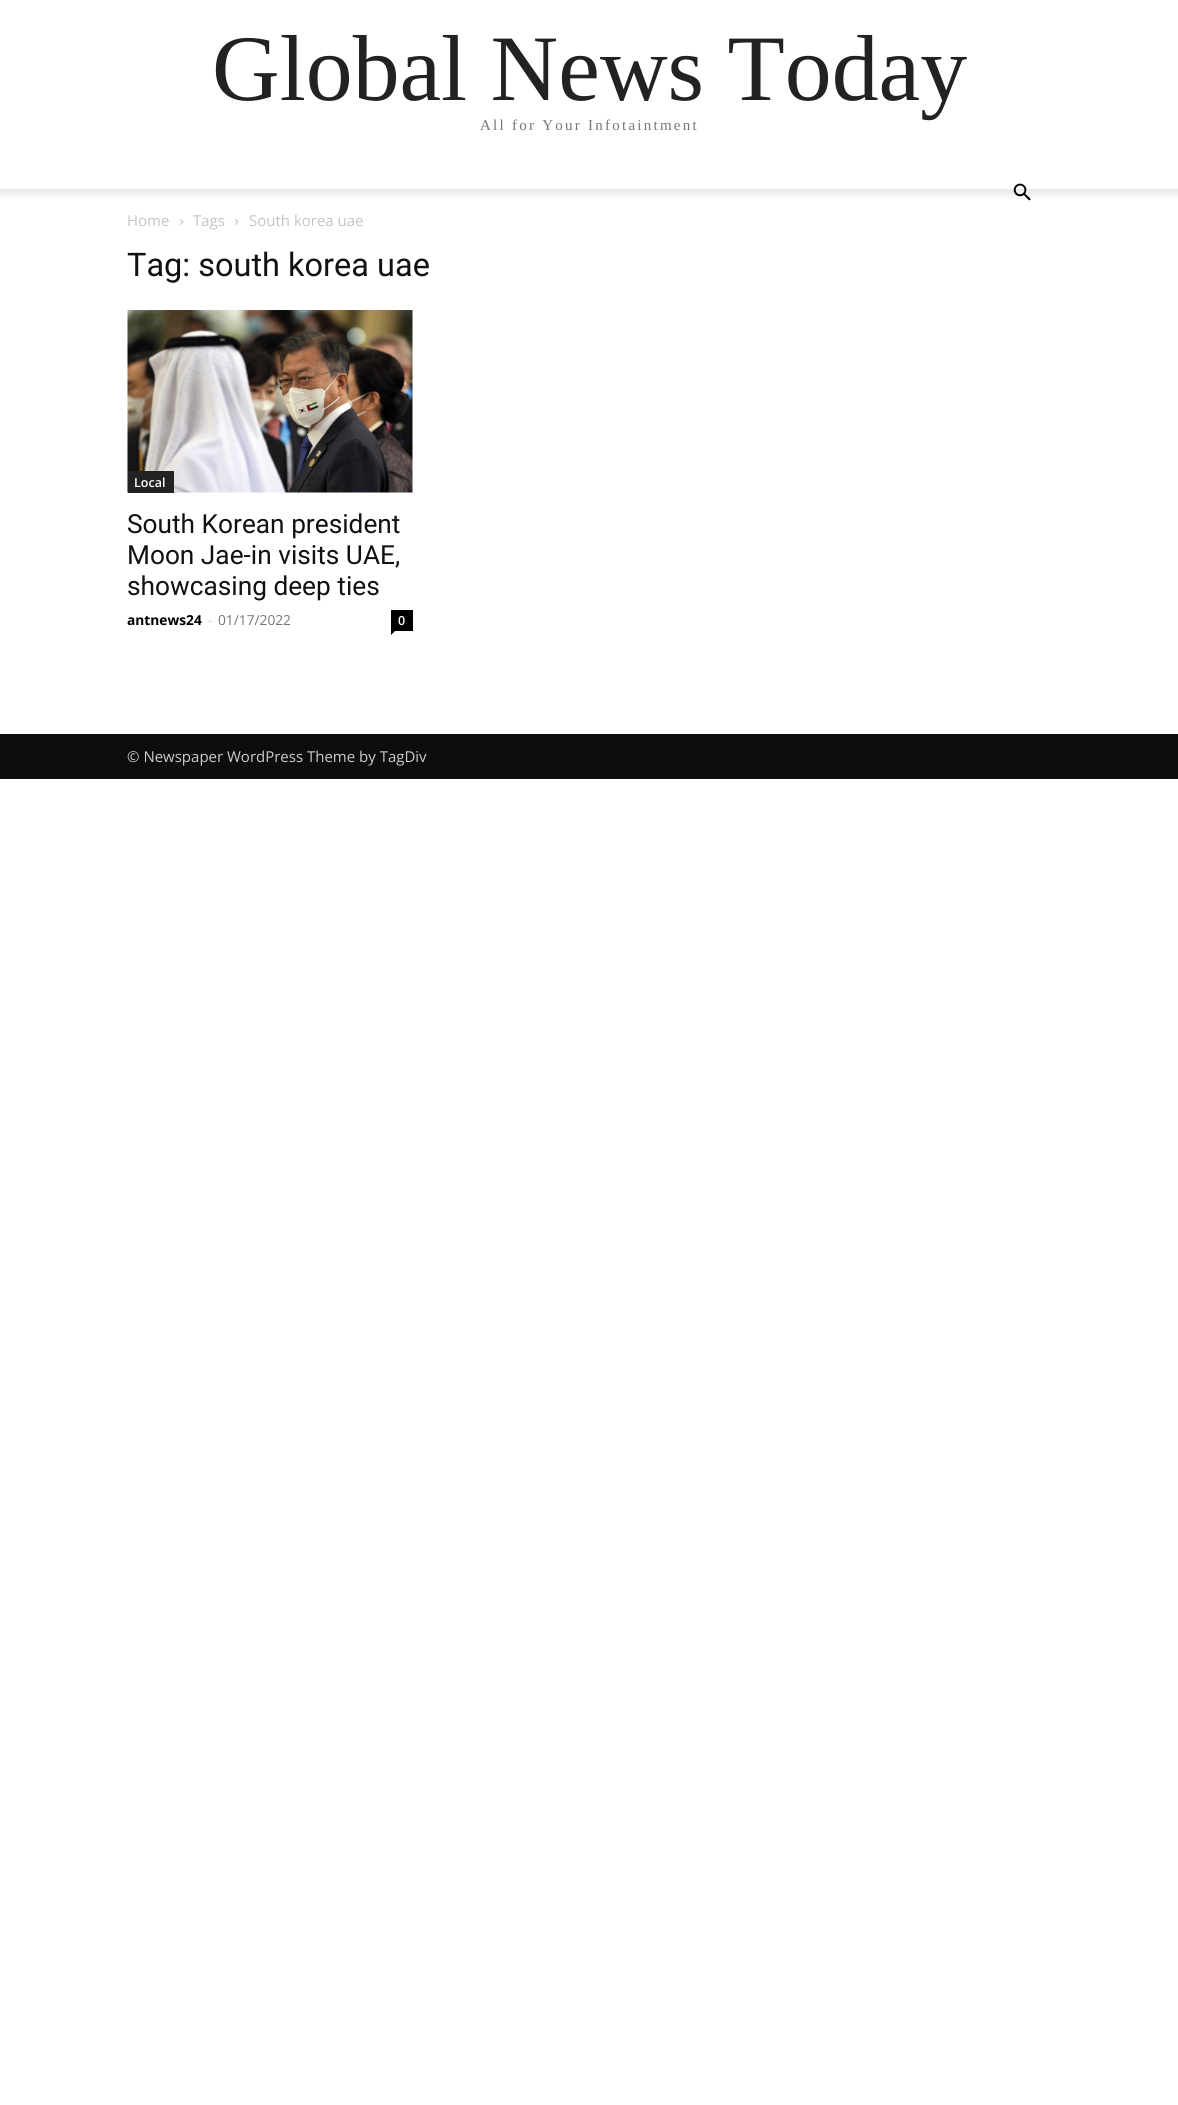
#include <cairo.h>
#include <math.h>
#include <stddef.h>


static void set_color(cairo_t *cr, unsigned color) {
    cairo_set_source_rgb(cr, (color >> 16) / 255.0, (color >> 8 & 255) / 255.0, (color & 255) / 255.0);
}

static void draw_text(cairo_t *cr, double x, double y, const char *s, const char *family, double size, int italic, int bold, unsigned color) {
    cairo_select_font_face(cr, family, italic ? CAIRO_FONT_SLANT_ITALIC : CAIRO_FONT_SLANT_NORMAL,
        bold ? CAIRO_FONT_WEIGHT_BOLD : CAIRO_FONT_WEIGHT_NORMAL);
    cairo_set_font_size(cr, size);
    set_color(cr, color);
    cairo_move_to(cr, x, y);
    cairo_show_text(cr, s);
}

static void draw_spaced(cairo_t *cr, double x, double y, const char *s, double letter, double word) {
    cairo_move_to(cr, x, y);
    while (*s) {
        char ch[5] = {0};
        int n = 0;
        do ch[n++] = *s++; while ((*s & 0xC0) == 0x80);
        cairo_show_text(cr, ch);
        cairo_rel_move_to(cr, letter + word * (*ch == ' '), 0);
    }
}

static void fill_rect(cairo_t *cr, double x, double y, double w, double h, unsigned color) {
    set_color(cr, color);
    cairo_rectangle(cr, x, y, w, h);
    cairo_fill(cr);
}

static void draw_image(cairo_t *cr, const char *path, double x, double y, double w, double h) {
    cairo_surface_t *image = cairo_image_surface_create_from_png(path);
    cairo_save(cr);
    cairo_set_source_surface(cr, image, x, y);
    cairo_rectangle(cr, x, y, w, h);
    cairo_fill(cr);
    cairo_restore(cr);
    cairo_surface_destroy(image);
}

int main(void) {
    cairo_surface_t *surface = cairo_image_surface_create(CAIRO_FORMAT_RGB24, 1178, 2105);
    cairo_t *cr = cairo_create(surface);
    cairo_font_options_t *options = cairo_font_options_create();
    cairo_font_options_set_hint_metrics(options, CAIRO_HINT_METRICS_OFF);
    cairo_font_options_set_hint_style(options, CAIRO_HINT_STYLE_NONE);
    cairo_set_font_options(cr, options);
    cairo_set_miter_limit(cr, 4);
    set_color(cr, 0xFFFFFF);
    cairo_paint(cr);
    draw_text(cr, 212, 100, "Global News Today", "Liberation Serif", 93.75, 0, 0, 0x222222);
    cairo_set_font_size(cr, 15);
    set_color(cr, 0x767676);
    draw_spaced(cr, 480, 130, "All for Your Infotaintment", 2.25, 0);
    draw_image(cr, "assets/img2.png", 0, 189, 1178, 10);
    draw_image(cr, "assets/img1.png", 1013, 183, 18, 18);
    draw_text(cr, 127, 226, "Home", "Open Sans", 15, 0, 0, 0xC3C3C3);
    draw_image(cr, "assets/img3.png", 180, 219, 4, 6);
    draw_text(cr, 193, 226, "Tags", "Open Sans", 15, 0, 0, 0xC3C3C3);
    draw_image(cr, "assets/img3.png", 235, 219, 4, 6);
    draw_text(cr, 249, 226, "South korea uae", "Open Sans", 15, 0, 0, 0xC3C3C3);
    draw_text(cr, 127, 276, "Tag: south korea uae", "Roboto", 32.5, 0, 0, 0x111111);
    draw_image(cr, "assets/img4.png", 127, 310, 286, 183);
    fill_rect(cr, 128, 471, 46, 22, 0x222222);
    draw_text(cr, 134, 487, "Local", "Open Sans SemiBold", 12.5, 0, 0, 0xFFFFFF);
    draw_text(cr, 127, 533, "South Korean president", "Roboto", 26.25, 0, 0, 0x111111);
    draw_text(cr, 127, 564, "Moon Jae-in visits UAE,", "Roboto", 26.25, 0, 0, 0x111111);
    draw_text(cr, 127, 595, "showcasing deep ties", "Roboto", 26.25, 0, 0, 0x111111);
    draw_text(cr, 127, 625, "antnews24", "Open Sans", 13.75, 0, 1, 0x000000);
    draw_text(cr, 208, 625, "-", "Open Sans", 13.75, 0, 0, 0xCCCCCC);
    draw_text(cr, 218, 625, "01/17/2022", "Open Sans", 13.75, 0, 0, 0x767676);
    fill_rect(cr, 391, 610, 22, 21, 0x000000);
    draw_text(cr, 398, 625, "0", "Open Sans SemiBold", 12.5, 0, 0, 0xFFFFFF);
    set_color(cr, 0x000000);
    cairo_new_path(cr);
    cairo_move_to(cr, 391, 631);
    cairo_line_to(cr, 395, 631);
    cairo_line_to(cr, 391, 635);
    cairo_close_path(cr);
    cairo_fill(cr);
    fill_rect(cr, 0, 734, 1178, 45, 0x0D0D0D);
    draw_text(cr, 127, 762, "© Newspaper WordPress Theme by TagDiv", "Open Sans", 15, 0, 0, 0xCCCCCC);
    cairo_surface_write_to_png(surface, "output.png");
    cairo_font_options_destroy(options);
    cairo_destroy(cr);
    cairo_surface_destroy(surface);
    return 0;
}
